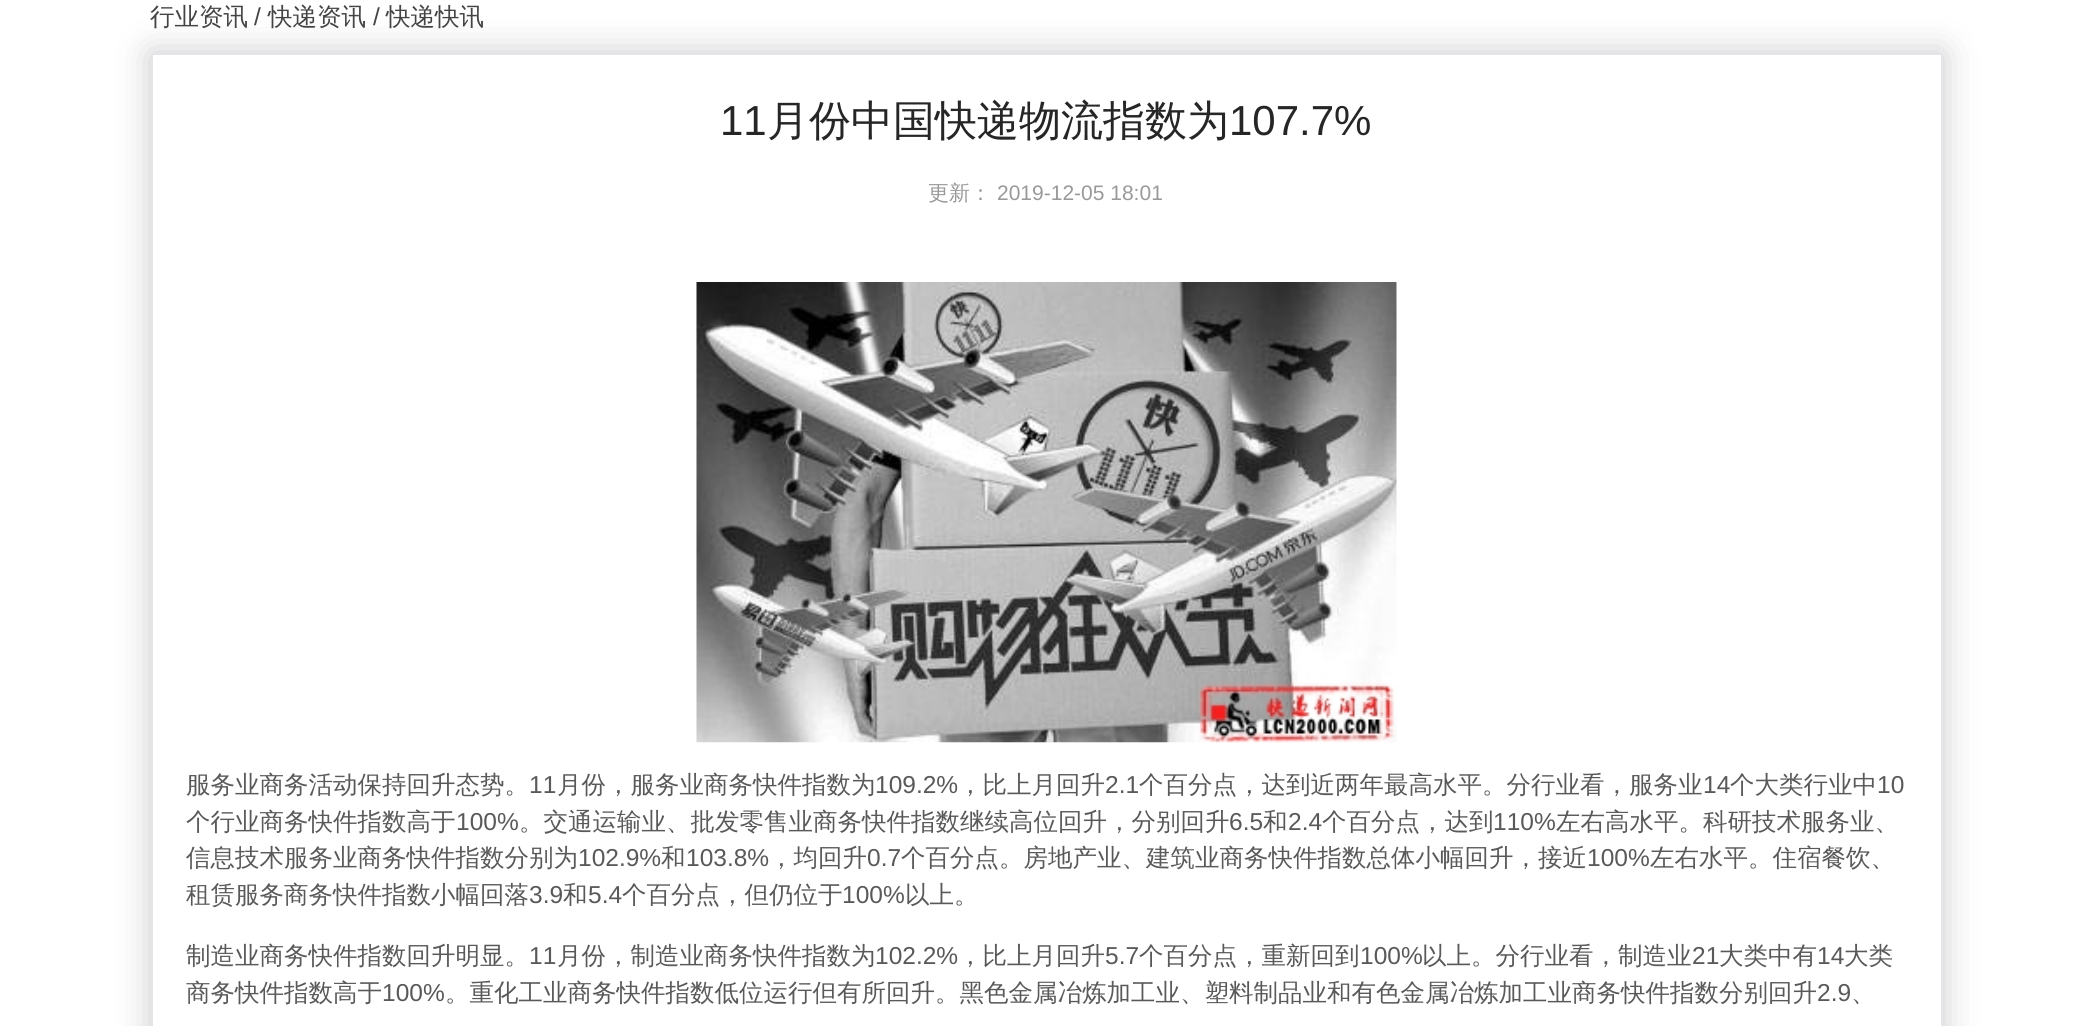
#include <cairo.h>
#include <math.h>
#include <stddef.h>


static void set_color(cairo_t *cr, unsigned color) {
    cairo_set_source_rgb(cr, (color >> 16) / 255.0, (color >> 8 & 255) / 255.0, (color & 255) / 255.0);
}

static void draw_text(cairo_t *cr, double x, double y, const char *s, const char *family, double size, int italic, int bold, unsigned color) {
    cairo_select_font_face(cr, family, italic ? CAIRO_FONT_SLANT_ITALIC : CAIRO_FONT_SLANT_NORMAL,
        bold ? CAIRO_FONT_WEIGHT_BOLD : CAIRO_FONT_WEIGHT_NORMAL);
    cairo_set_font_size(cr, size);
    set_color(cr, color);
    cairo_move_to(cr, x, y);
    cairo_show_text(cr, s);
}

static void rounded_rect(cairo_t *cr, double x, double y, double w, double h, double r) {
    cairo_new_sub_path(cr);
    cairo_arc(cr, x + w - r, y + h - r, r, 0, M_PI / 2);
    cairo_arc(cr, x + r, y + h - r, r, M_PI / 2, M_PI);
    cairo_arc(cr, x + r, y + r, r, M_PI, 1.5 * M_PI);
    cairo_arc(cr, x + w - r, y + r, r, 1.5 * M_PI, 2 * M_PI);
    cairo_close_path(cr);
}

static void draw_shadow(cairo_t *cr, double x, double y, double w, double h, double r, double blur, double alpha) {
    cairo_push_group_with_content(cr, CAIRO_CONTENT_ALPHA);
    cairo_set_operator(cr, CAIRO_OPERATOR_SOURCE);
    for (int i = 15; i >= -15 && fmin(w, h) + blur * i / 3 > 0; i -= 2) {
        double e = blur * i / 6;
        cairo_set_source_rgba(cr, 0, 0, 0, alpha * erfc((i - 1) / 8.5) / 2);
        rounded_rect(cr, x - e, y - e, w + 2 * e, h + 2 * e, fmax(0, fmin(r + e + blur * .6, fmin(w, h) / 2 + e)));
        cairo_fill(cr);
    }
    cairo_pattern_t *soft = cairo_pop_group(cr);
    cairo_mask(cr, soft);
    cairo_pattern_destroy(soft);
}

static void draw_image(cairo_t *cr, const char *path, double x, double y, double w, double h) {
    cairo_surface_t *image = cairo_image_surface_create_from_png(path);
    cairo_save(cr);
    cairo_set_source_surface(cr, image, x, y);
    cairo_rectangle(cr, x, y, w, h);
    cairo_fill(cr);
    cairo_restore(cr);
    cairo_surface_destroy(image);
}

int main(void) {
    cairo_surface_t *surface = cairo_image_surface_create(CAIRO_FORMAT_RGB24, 2091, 1026);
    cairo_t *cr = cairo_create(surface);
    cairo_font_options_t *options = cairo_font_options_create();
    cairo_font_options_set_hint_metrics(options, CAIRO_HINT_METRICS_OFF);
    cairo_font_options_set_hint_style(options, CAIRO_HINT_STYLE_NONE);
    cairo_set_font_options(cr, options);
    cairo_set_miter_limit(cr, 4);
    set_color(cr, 0xFFFFFF);
    cairo_paint(cr);
    set_color(cr, 0xCCCACA);
    draw_shadow(cr, 151, 53, 1792, 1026, 0, 17.5, 1);
    draw_text(cr, 150, 25, "行业资讯", "WenQuanYi Zen Hei Medium", 24.5, 0, 0, 0x444444);
    draw_text(cr, 254, 25, "/", "Liberation Sans", 24.5, 0, 0, 0x444444);
    draw_text(cr, 268, 25, "快递资讯", "WenQuanYi Zen Hei Medium", 24.5, 0, 0, 0x444444);
    draw_text(cr, 373, 25, "/", "Liberation Sans", 24.5, 0, 0, 0x444444);
    draw_text(cr, 386, 25, "快递快讯", "WenQuanYi Zen Hei Medium", 24.5, 0, 0, 0x444444);
    set_color(cr, 0xFFFFFF);
    cairo_rectangle(cr, 152, 54, 1790, 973);
    cairo_fill_preserve(cr);
    set_color(cr, 0xE5E5E9);
    cairo_stroke(cr);
    draw_text(cr, 720, 135, "11", "Liberation Sans", 42, 0, 0, 0x262626);
    draw_text(cr, 767, 135, "月份中国快递物流指数为", "WenQuanYi Zen Hei Medium", 42, 0, 0, 0x262626);
    draw_text(cr, 1229, 135, "107.7%", "Liberation Sans", 42, 0, 0, 0x262626);
    draw_text(cr, 928, 200, "更新：", "WenQuanYi Zen Hei Medium", 21, 0, 0, 0x999999);
    draw_text(cr, 997, 200, "2019-12-05 18:01", "Liberation Sans", 21, 0, 0, 0x999999);
    draw_image(cr, "assets/img1.png", 696, 282, 701, 461);
    draw_text(cr, 186, 793, "服务业商务活动保持回升态势。", "WenQuanYi Zen Hei Medium", 24.5, 0, 0, 0x595959);
    draw_text(cr, 529, 793, "11", "Liberation Sans", 24.5, 0, 0, 0x595959);
    draw_text(cr, 557, 793, "月份，服务业商务快件指数为", "WenQuanYi Zen Hei Medium", 24.5, 0, 0, 0x595959);
    draw_text(cr, 875, 793, "109.2%", "Liberation Sans", 24.5, 0, 0, 0x595959);
    draw_text(cr, 958, 793, "，比上月回升", "WenQuanYi Zen Hei Medium", 24.5, 0, 0, 0x595959);
    draw_text(cr, 1105, 793, "2.1", "Liberation Sans", 24.5, 0, 0, 0x595959);
    draw_text(cr, 1139, 793, "个百分点，达到近两年最高水平。分行业看，服务业", "WenQuanYi Zen Hei Medium", 24.5, 0, 0, 0x595959);
    draw_text(cr, 1703, 793, "14", "Liberation Sans", 24.5, 0, 0, 0x595959);
    draw_text(cr, 1730, 793, "个大类行业中", "WenQuanYi Zen Hei Medium", 24.5, 0, 0, 0x595959);
    draw_text(cr, 1877, 793, "10", "Liberation Sans", 24.5, 0, 0, 0x595959);
    draw_text(cr, 186, 830, "个行业商务快件指数高于", "WenQuanYi Zen Hei Medium", 24.5, 0, 0, 0x595959);
    draw_text(cr, 456, 830, "100%", "Liberation Sans", 24.5, 0, 0, 0x595959);
    draw_text(cr, 519, 830, "。交通运输业、批发零售业商务快件指数继续高位回升，分别回升", "WenQuanYi Zen Hei Medium", 24.5, 0, 0, 0x595959);
    draw_text(cr, 1229, 830, "6.5", "Liberation Sans", 24.5, 0, 0, 0x595959);
    draw_text(cr, 1263, 830, "和", "WenQuanYi Zen Hei Medium", 24.5, 0, 0, 0x595959);
    draw_text(cr, 1288, 830, "2.4", "Liberation Sans", 24.5, 0, 0, 0x595959);
    draw_text(cr, 1322, 830, "个百分点，达到", "WenQuanYi Zen Hei Medium", 24.5, 0, 0, 0x595959);
    draw_text(cr, 1493, 830, "110%", "Liberation Sans", 24.5, 0, 0, 0x595959);
    draw_text(cr, 1556, 830, "左右高水平。科研技术服务业、", "WenQuanYi Zen Hei Medium", 24.5, 0, 0, 0x595959);
    draw_text(cr, 186, 866, "信息技术服务业商务快件指数分别为", "WenQuanYi Zen Hei Medium", 24.5, 0, 0, 0x595959);
    draw_text(cr, 578, 866, "102.9%", "Liberation Sans", 24.5, 0, 0, 0x595959);
    draw_text(cr, 661, 866, "和", "WenQuanYi Zen Hei Medium", 24.5, 0, 0, 0x595959);
    draw_text(cr, 686, 866, "103.8%", "Liberation Sans", 24.5, 0, 0, 0x595959);
    draw_text(cr, 769, 866, "，均回升", "WenQuanYi Zen Hei Medium", 24.5, 0, 0, 0x595959);
    draw_text(cr, 867, 866, "0.7", "Liberation Sans", 24.5, 0, 0, 0x595959);
    draw_text(cr, 901, 866, "个百分点。房地产业、建筑业商务快件指数总体小幅回升，接近", "WenQuanYi Zen Hei Medium", 24.5, 0, 0, 0x595959);
    draw_text(cr, 1587, 866, "100%", "Liberation Sans", 24.5, 0, 0, 0x595959);
    draw_text(cr, 1650, 866, "左右水平。住宿餐饮、", "WenQuanYi Zen Hei Medium", 24.5, 0, 0, 0x595959);
    draw_text(cr, 186, 903, "租赁服务商务快件指数小幅回落", "WenQuanYi Zen Hei Medium", 24.5, 0, 0, 0x595959);
    draw_text(cr, 529, 903, "3.9", "Liberation Sans", 24.5, 0, 0, 0x595959);
    draw_text(cr, 563, 903, "和", "WenQuanYi Zen Hei Medium", 24.5, 0, 0, 0x595959);
    draw_text(cr, 588, 903, "5.4", "Liberation Sans", 24.5, 0, 0, 0x595959);
    draw_text(cr, 622, 903, "个百分点，但仍位于", "WenQuanYi Zen Hei Medium", 24.5, 0, 0, 0x595959);
    draw_text(cr, 842, 903, "100%", "Liberation Sans", 24.5, 0, 0, 0x595959);
    draw_text(cr, 905, 903, "以上。", "WenQuanYi Zen Hei Medium", 24.5, 0, 0, 0x595959);
    draw_text(cr, 186, 964, "制造业商务快件指数回升明显。", "WenQuanYi Zen Hei Medium", 24.5, 0, 0, 0x595959);
    draw_text(cr, 529, 964, "11", "Liberation Sans", 24.5, 0, 0, 0x595959);
    draw_text(cr, 557, 964, "月份，制造业商务快件指数为", "WenQuanYi Zen Hei Medium", 24.5, 0, 0, 0x595959);
    draw_text(cr, 875, 964, "102.2%", "Liberation Sans", 24.5, 0, 0, 0x595959);
    draw_text(cr, 958, 964, "，比上月回升", "WenQuanYi Zen Hei Medium", 24.5, 0, 0, 0x595959);
    draw_text(cr, 1105, 964, "5.7", "Liberation Sans", 24.5, 0, 0, 0x595959);
    draw_text(cr, 1139, 964, "个百分点，重新回到", "WenQuanYi Zen Hei Medium", 24.5, 0, 0, 0x595959);
    draw_text(cr, 1360, 964, "100%", "Liberation Sans", 24.5, 0, 0, 0x595959);
    draw_text(cr, 1422, 964, "以上。分行业看，制造业", "WenQuanYi Zen Hei Medium", 24.5, 0, 0, 0x595959);
    draw_text(cr, 1692, 964, "21", "Liberation Sans", 24.5, 0, 0, 0x595959);
    draw_text(cr, 1719, 964, "大类中有", "WenQuanYi Zen Hei Medium", 24.5, 0, 0, 0x595959);
    draw_text(cr, 1817, 964, "14", "Liberation Sans", 24.5, 0, 0, 0x595959);
    draw_text(cr, 1844, 964, "大类", "WenQuanYi Zen Hei Medium", 24.5, 0, 0, 0x595959);
    draw_text(cr, 186, 1001, "商务快件指数高于", "WenQuanYi Zen Hei Medium", 24.5, 0, 0, 0x595959);
    draw_text(cr, 382, 1001, "100%", "Liberation Sans", 24.5, 0, 0, 0x595959);
    draw_text(cr, 445, 1001, "。重化工业商务快件指数低位运行但有所回升。黑色金属冶炼加工业、塑料制品业和有色金属冶炼加工业商务快件指数分别回升", "WenQuanYi Zen Hei Medium", 24.5, 0, 0, 0x595959);
    draw_text(cr, 1817, 1001, "2.9", "Liberation Sans", 24.5, 0, 0, 0x595959);
    draw_text(cr, 1851, 1001, "、", "WenQuanYi Zen Hei Medium", 24.5, 0, 0, 0x595959);
    cairo_surface_write_to_png(surface, "output.png");
    cairo_font_options_destroy(options);
    cairo_destroy(cr);
    cairo_surface_destroy(surface);
    return 0;
}
